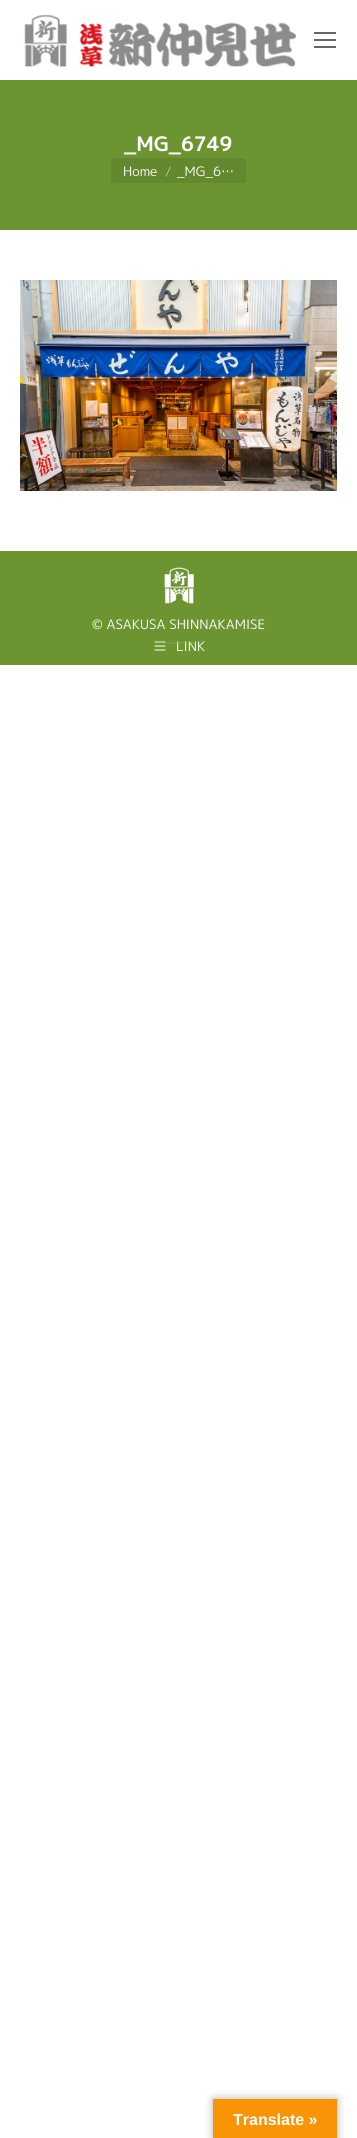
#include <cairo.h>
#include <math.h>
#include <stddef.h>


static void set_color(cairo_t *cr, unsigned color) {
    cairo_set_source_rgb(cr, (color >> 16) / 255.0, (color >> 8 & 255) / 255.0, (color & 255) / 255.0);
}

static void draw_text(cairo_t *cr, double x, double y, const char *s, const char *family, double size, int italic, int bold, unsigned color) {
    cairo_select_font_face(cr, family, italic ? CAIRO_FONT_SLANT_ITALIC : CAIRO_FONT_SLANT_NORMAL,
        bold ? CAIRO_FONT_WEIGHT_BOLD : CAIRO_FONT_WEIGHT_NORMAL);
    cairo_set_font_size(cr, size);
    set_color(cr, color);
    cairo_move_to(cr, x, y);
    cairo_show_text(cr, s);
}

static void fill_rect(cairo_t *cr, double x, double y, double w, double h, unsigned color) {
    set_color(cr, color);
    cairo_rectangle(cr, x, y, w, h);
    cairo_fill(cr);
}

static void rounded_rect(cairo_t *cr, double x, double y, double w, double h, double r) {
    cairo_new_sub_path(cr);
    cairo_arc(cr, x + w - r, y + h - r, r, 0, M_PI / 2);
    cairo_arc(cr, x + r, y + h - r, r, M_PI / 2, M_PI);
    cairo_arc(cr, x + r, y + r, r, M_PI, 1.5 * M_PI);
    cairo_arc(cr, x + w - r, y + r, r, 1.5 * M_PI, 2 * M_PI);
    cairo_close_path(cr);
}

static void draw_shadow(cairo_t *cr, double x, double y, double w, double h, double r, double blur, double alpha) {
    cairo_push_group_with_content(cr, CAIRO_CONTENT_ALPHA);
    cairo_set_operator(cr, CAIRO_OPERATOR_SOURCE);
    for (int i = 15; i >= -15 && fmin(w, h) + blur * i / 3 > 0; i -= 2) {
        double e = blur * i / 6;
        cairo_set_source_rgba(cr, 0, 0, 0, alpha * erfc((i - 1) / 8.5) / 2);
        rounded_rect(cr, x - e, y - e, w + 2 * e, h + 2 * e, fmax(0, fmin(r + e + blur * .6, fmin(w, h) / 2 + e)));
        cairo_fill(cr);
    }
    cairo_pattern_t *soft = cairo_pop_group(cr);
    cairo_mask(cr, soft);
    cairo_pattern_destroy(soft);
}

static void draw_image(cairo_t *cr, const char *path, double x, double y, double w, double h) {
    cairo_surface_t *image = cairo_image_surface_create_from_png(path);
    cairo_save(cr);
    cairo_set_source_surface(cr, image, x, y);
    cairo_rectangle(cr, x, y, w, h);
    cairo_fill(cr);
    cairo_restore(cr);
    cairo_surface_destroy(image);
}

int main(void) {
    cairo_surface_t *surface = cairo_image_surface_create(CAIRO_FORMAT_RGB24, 357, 2138);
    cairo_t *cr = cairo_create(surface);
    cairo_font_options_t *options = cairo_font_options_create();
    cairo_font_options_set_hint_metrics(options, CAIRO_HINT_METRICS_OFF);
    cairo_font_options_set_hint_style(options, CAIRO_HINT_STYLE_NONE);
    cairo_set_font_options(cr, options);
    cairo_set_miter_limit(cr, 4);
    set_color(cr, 0xFFFFFF);
    cairo_paint(cr);
    draw_image(cr, "assets/img1.png", 24, 14, 272, 54);
    fill_rect(cr, 314, 32, 22, 2, 0x666666);
    fill_rect(cr, 314, 39, 22, 2, 0x666666);
    fill_rect(cr, 314, 46, 22, 2, 0x666666);
    fill_rect(cr, 0, 80, 357, 150, 0x6C9531);
    draw_text(cr, 124, 151, "_MG_6749", "M PLUS 1p", 20, 0, 1, 0xFFFFFF);
    set_color(cr, 0x63882E);
    rounded_rect(cr, 111, 158, 135, 25, 3);
    cairo_fill(cr);
    draw_text(cr, 123, 176, "Home", "M PLUS 1p", 13, 0, 0, 0xFFFFFF);
    draw_text(cr, 165, 176, "/", "M PLUS 1p", 13, 0, 0, 0xB1C497);
    draw_text(cr, 177, 176, "_MG_6…", "M PLUS 1p", 13, 0, 0, 0xFFFFFF);
    draw_image(cr, "assets/img2.png", 20, 280, 317, 211);
    fill_rect(cr, 0, 551, 357, 114, 0x6C9531);
    draw_image(cr, "assets/img3.png", 164, 567, 30, 37);
    draw_text(cr, 92, 629, "© ASAKUSA SHINNAKAMISE", "M PLUS 1p", 13, 0, 0, 0xFFFFFF);
    draw_image(cr, "assets/img4.png", 154, 641, 12, 10);
    draw_text(cr, 176, 651, "LINK", "M PLUS 1p", 13, 0, 0, 0xFFFFFF);
    draw_text(cr, 155, 647, "———", "M PLUS 1p", 14, 0, 0, 0x86A856);
    set_color(cr, 0x000000);
    draw_shadow(cr, 213, 2099, 124, 39, 0, 4.5, 0.3);
    fill_rect(cr, 213, 2099, 124, 39, 0xF89406);
    draw_text(cr, 233, 2125, "Translate »", "Liberation Sans", 16, 0, 1, 0xFFFFFF);
    cairo_surface_write_to_png(surface, "output.png");
    cairo_font_options_destroy(options);
    cairo_destroy(cr);
    cairo_surface_destroy(surface);
    return 0;
}
